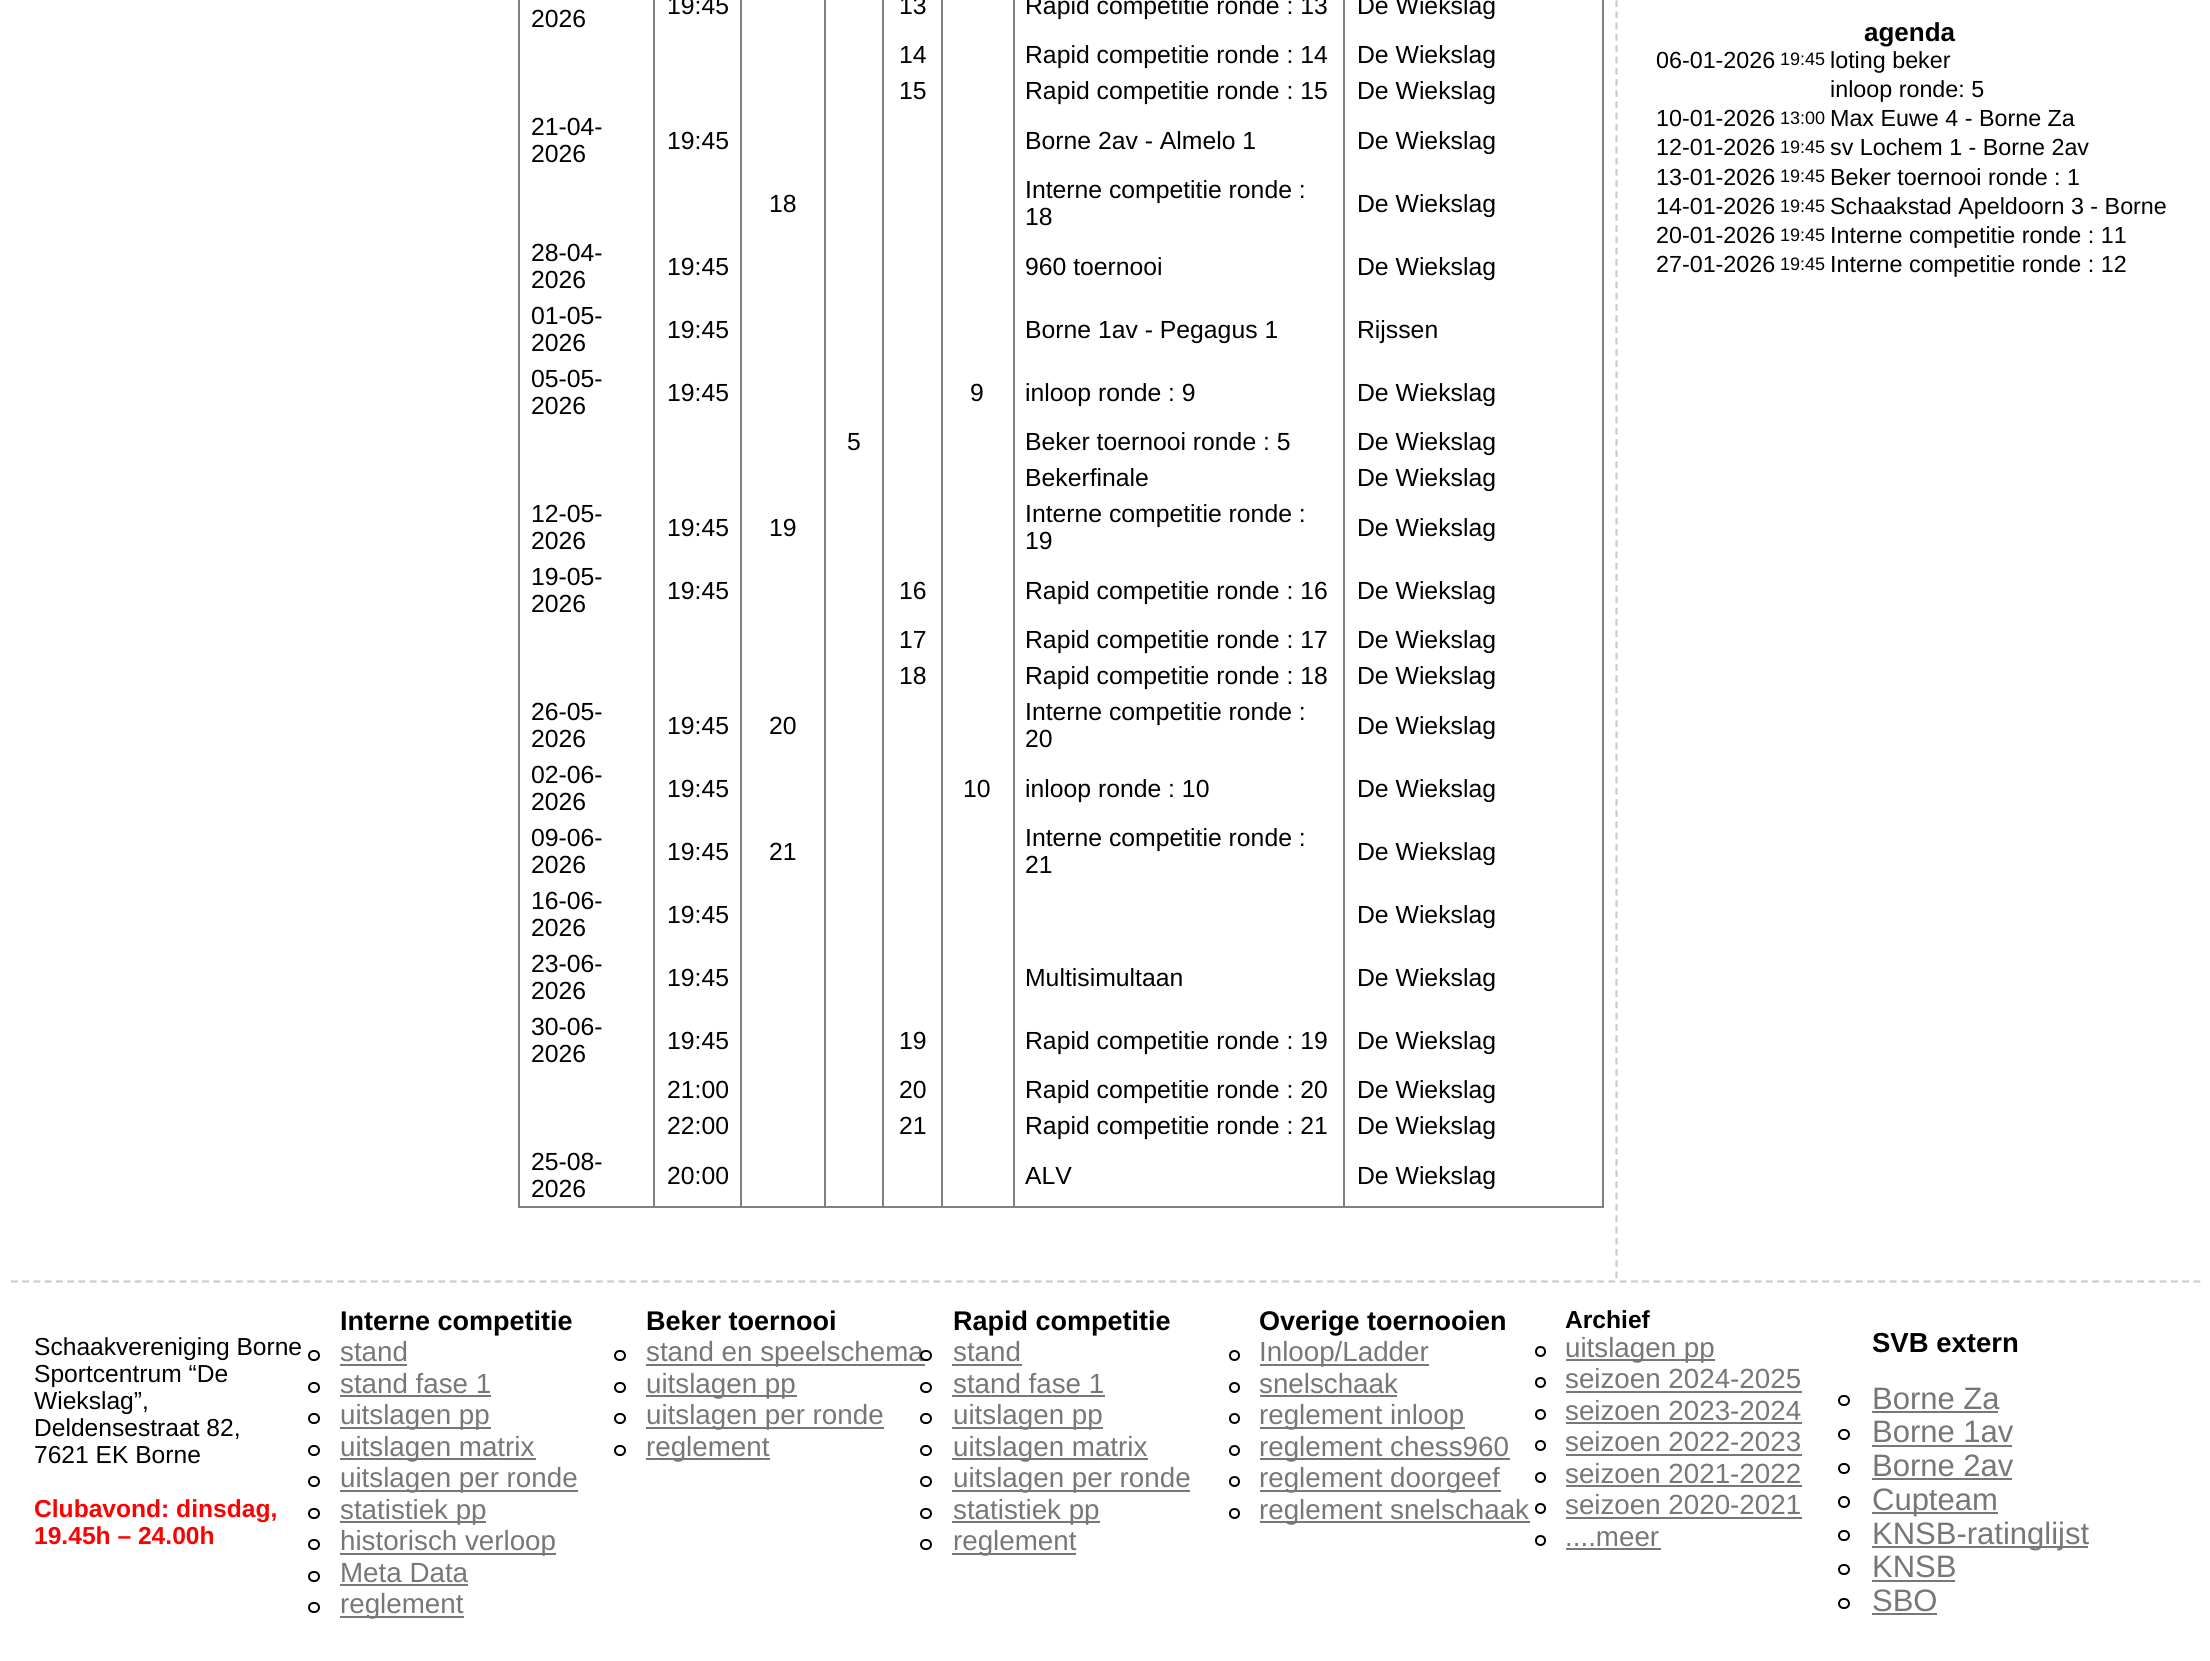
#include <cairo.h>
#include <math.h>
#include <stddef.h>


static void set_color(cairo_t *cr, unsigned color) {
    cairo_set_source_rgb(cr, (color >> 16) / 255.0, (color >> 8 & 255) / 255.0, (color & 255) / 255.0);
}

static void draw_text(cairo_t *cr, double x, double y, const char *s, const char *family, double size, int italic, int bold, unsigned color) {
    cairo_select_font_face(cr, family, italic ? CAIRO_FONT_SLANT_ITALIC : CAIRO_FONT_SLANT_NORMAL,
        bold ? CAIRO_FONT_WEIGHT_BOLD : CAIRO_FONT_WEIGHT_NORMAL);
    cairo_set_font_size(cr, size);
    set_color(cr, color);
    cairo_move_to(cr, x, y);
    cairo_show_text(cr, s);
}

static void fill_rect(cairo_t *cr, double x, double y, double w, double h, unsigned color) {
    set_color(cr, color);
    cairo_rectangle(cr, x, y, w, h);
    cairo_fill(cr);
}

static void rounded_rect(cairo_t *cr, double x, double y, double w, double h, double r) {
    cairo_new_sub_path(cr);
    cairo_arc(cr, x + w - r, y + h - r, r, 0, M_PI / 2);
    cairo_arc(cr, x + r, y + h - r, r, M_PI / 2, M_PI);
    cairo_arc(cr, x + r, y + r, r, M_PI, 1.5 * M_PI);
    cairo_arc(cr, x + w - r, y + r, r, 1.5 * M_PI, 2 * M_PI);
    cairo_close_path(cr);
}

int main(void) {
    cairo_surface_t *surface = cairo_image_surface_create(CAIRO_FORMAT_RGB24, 2210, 1661);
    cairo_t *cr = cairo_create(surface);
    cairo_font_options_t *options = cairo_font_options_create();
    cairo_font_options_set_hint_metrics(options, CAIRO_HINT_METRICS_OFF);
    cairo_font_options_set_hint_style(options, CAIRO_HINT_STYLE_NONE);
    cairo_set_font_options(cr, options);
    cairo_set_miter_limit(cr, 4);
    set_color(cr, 0xFFFFFF);
    cairo_paint(cr);
    fill_rect(cr, 1602, 0, 2, 1208, 0x808080);
    fill_rect(cr, 518, 1206, 1086, 2, 0x808080);
    fill_rect(cr, 518, 0, 2, 1208, 0x808080);
    draw_text(cr, 531, 27, "2026", "Liberation Sans", 24.75, 0, 0, 0x000000);
    draw_text(cr, 667, 14, "19:45", "Liberation Sans", 24.75, 0, 0, 0x000000);
    draw_text(cr, 899, 14, "13", "Liberation Sans", 24.75, 0, 0, 0x000000);
    draw_text(cr, 1025, 14, "Rapid competitie ronde : 13", "Liberation Sans", 24.75, 0, 0, 0x000000);
    draw_text(cr, 1357, 14, "De Wiekslag", "Liberation Sans", 24.75, 0, 0, 0x000000);
    draw_text(cr, 899, 63, "14", "Liberation Sans", 24.75, 0, 0, 0x000000);
    draw_text(cr, 1025, 63, "Rapid competitie ronde : 14", "Liberation Sans", 24.75, 0, 0, 0x000000);
    draw_text(cr, 1357, 63, "De Wiekslag", "Liberation Sans", 24.75, 0, 0, 0x000000);
    draw_text(cr, 899, 99, "15", "Liberation Sans", 24.75, 0, 0, 0x000000);
    draw_text(cr, 1025, 99, "Rapid competitie ronde : 15", "Liberation Sans", 24.75, 0, 0, 0x000000);
    draw_text(cr, 1357, 99, "De Wiekslag", "Liberation Sans", 24.75, 0, 0, 0x000000);
    draw_text(cr, 531, 135, "21-04-", "Liberation Sans", 24.75, 0, 0, 0x000000);
    draw_text(cr, 531, 162, "2026", "Liberation Sans", 24.75, 0, 0, 0x000000);
    draw_text(cr, 667, 149, "19:45", "Liberation Sans", 24.75, 0, 0, 0x000000);
    draw_text(cr, 1025, 149, "Borne 2av - Almelo 1", "Liberation Sans", 24.75, 0, 0, 0x000000);
    draw_text(cr, 1357, 149, "De Wiekslag", "Liberation Sans", 24.75, 0, 0, 0x000000);
    draw_text(cr, 769, 212, "18", "Liberation Sans", 24.75, 0, 0, 0x000000);
    draw_text(cr, 1025, 198, "Interne competitie ronde :", "Liberation Sans", 24.75, 0, 0, 0x000000);
    draw_text(cr, 1025, 225, "18", "Liberation Sans", 24.75, 0, 0, 0x000000);
    draw_text(cr, 1357, 212, "De Wiekslag", "Liberation Sans", 24.75, 0, 0, 0x000000);
    draw_text(cr, 531, 261, "28-04-", "Liberation Sans", 24.75, 0, 0, 0x000000);
    draw_text(cr, 531, 288, "2026", "Liberation Sans", 24.75, 0, 0, 0x000000);
    draw_text(cr, 667, 275, "19:45", "Liberation Sans", 24.75, 0, 0, 0x000000);
    draw_text(cr, 1025, 275, "960 toernooi", "Liberation Sans", 24.75, 0, 0, 0x000000);
    draw_text(cr, 1357, 275, "De Wiekslag", "Liberation Sans", 24.75, 0, 0, 0x000000);
    draw_text(cr, 531, 324, "01-05-", "Liberation Sans", 24.75, 0, 0, 0x000000);
    draw_text(cr, 531, 351, "2026", "Liberation Sans", 24.75, 0, 0, 0x000000);
    draw_text(cr, 667, 338, "19:45", "Liberation Sans", 24.75, 0, 0, 0x000000);
    draw_text(cr, 1025, 338, "Borne 1av - Pegagus 1", "Liberation Sans", 24.75, 0, 0, 0x000000);
    draw_text(cr, 1357, 338, "Rijssen", "Liberation Sans", 24.75, 0, 0, 0x000000);
    draw_text(cr, 531, 387, "05-05-", "Liberation Sans", 24.75, 0, 0, 0x000000);
    draw_text(cr, 531, 414, "2026", "Liberation Sans", 24.75, 0, 0, 0x000000);
    draw_text(cr, 667, 401, "19:45", "Liberation Sans", 24.75, 0, 0, 0x000000);
    draw_text(cr, 970, 401, "9", "Liberation Sans", 24.75, 0, 0, 0x000000);
    draw_text(cr, 1025, 401, "inloop ronde : 9", "Liberation Sans", 24.75, 0, 0, 0x000000);
    draw_text(cr, 1357, 401, "De Wiekslag", "Liberation Sans", 24.75, 0, 0, 0x000000);
    draw_text(cr, 847, 450, "5", "Liberation Sans", 24.75, 0, 0, 0x000000);
    draw_text(cr, 1025, 450, "Beker toernooi ronde : 5", "Liberation Sans", 24.75, 0, 0, 0x000000);
    draw_text(cr, 1357, 450, "De Wiekslag", "Liberation Sans", 24.75, 0, 0, 0x000000);
    draw_text(cr, 1025, 486, "Bekerfinale", "Liberation Sans", 24.75, 0, 0, 0x000000);
    draw_text(cr, 1357, 486, "De Wiekslag", "Liberation Sans", 24.75, 0, 0, 0x000000);
    draw_text(cr, 531, 522, "12-05-", "Liberation Sans", 24.75, 0, 0, 0x000000);
    draw_text(cr, 531, 549, "2026", "Liberation Sans", 24.75, 0, 0, 0x000000);
    draw_text(cr, 667, 536, "19:45", "Liberation Sans", 24.75, 0, 0, 0x000000);
    draw_text(cr, 769, 536, "19", "Liberation Sans", 24.75, 0, 0, 0x000000);
    draw_text(cr, 1025, 522, "Interne competitie ronde :", "Liberation Sans", 24.75, 0, 0, 0x000000);
    draw_text(cr, 1025, 549, "19", "Liberation Sans", 24.75, 0, 0, 0x000000);
    draw_text(cr, 1357, 536, "De Wiekslag", "Liberation Sans", 24.75, 0, 0, 0x000000);
    draw_text(cr, 531, 585, "19-05-", "Liberation Sans", 24.75, 0, 0, 0x000000);
    draw_text(cr, 531, 612, "2026", "Liberation Sans", 24.75, 0, 0, 0x000000);
    draw_text(cr, 667, 599, "19:45", "Liberation Sans", 24.75, 0, 0, 0x000000);
    draw_text(cr, 899, 599, "16", "Liberation Sans", 24.75, 0, 0, 0x000000);
    draw_text(cr, 1025, 599, "Rapid competitie ronde : 16", "Liberation Sans", 24.75, 0, 0, 0x000000);
    draw_text(cr, 1357, 599, "De Wiekslag", "Liberation Sans", 24.75, 0, 0, 0x000000);
    draw_text(cr, 899, 648, "17", "Liberation Sans", 24.75, 0, 0, 0x000000);
    draw_text(cr, 1025, 648, "Rapid competitie ronde : 17", "Liberation Sans", 24.75, 0, 0, 0x000000);
    draw_text(cr, 1357, 648, "De Wiekslag", "Liberation Sans", 24.75, 0, 0, 0x000000);
    draw_text(cr, 899, 684, "18", "Liberation Sans", 24.75, 0, 0, 0x000000);
    draw_text(cr, 1025, 684, "Rapid competitie ronde : 18", "Liberation Sans", 24.75, 0, 0, 0x000000);
    draw_text(cr, 1357, 684, "De Wiekslag", "Liberation Sans", 24.75, 0, 0, 0x000000);
    draw_text(cr, 531, 720, "26-05-", "Liberation Sans", 24.75, 0, 0, 0x000000);
    draw_text(cr, 531, 747, "2026", "Liberation Sans", 24.75, 0, 0, 0x000000);
    draw_text(cr, 667, 734, "19:45", "Liberation Sans", 24.75, 0, 0, 0x000000);
    draw_text(cr, 769, 734, "20", "Liberation Sans", 24.75, 0, 0, 0x000000);
    draw_text(cr, 1025, 720, "Interne competitie ronde :", "Liberation Sans", 24.75, 0, 0, 0x000000);
    draw_text(cr, 1025, 747, "20", "Liberation Sans", 24.75, 0, 0, 0x000000);
    draw_text(cr, 1357, 734, "De Wiekslag", "Liberation Sans", 24.75, 0, 0, 0x000000);
    draw_text(cr, 531, 783, "02-06-", "Liberation Sans", 24.75, 0, 0, 0x000000);
    draw_text(cr, 531, 810, "2026", "Liberation Sans", 24.75, 0, 0, 0x000000);
    draw_text(cr, 667, 797, "19:45", "Liberation Sans", 24.75, 0, 0, 0x000000);
    draw_text(cr, 963, 797, "10", "Liberation Sans", 24.75, 0, 0, 0x000000);
    draw_text(cr, 1025, 797, "inloop ronde : 10", "Liberation Sans", 24.75, 0, 0, 0x000000);
    draw_text(cr, 1357, 797, "De Wiekslag", "Liberation Sans", 24.75, 0, 0, 0x000000);
    draw_text(cr, 531, 846, "09-06-", "Liberation Sans", 24.75, 0, 0, 0x000000);
    draw_text(cr, 531, 873, "2026", "Liberation Sans", 24.75, 0, 0, 0x000000);
    draw_text(cr, 667, 860, "19:45", "Liberation Sans", 24.75, 0, 0, 0x000000);
    draw_text(cr, 769, 860, "21", "Liberation Sans", 24.75, 0, 0, 0x000000);
    draw_text(cr, 1025, 846, "Interne competitie ronde :", "Liberation Sans", 24.75, 0, 0, 0x000000);
    draw_text(cr, 1025, 873, "21", "Liberation Sans", 24.75, 0, 0, 0x000000);
    draw_text(cr, 1357, 860, "De Wiekslag", "Liberation Sans", 24.75, 0, 0, 0x000000);
    draw_text(cr, 531, 909, "16-06-", "Liberation Sans", 24.75, 0, 0, 0x000000);
    draw_text(cr, 531, 936, "2026", "Liberation Sans", 24.75, 0, 0, 0x000000);
    draw_text(cr, 667, 923, "19:45", "Liberation Sans", 24.75, 0, 0, 0x000000);
    draw_text(cr, 1357, 923, "De Wiekslag", "Liberation Sans", 24.75, 0, 0, 0x000000);
    draw_text(cr, 531, 972, "23-06-", "Liberation Sans", 24.75, 0, 0, 0x000000);
    draw_text(cr, 531, 999, "2026", "Liberation Sans", 24.75, 0, 0, 0x000000);
    draw_text(cr, 667, 986, "19:45", "Liberation Sans", 24.75, 0, 0, 0x000000);
    draw_text(cr, 1025, 986, "Multisimultaan", "Liberation Sans", 24.75, 0, 0, 0x000000);
    draw_text(cr, 1357, 986, "De Wiekslag", "Liberation Sans", 24.75, 0, 0, 0x000000);
    draw_text(cr, 531, 1035, "30-06-", "Liberation Sans", 24.75, 0, 0, 0x000000);
    draw_text(cr, 531, 1062, "2026", "Liberation Sans", 24.75, 0, 0, 0x000000);
    draw_text(cr, 667, 1049, "19:45", "Liberation Sans", 24.75, 0, 0, 0x000000);
    draw_text(cr, 899, 1049, "19", "Liberation Sans", 24.75, 0, 0, 0x000000);
    draw_text(cr, 1025, 1049, "Rapid competitie ronde : 19", "Liberation Sans", 24.75, 0, 0, 0x000000);
    draw_text(cr, 1357, 1049, "De Wiekslag", "Liberation Sans", 24.75, 0, 0, 0x000000);
    draw_text(cr, 667, 1098, "21:00", "Liberation Sans", 24.75, 0, 0, 0x000000);
    draw_text(cr, 899, 1098, "20", "Liberation Sans", 24.75, 0, 0, 0x000000);
    draw_text(cr, 1025, 1098, "Rapid competitie ronde : 20", "Liberation Sans", 24.75, 0, 0, 0x000000);
    draw_text(cr, 1357, 1098, "De Wiekslag", "Liberation Sans", 24.75, 0, 0, 0x000000);
    draw_text(cr, 667, 1134, "22:00", "Liberation Sans", 24.75, 0, 0, 0x000000);
    draw_text(cr, 899, 1134, "21", "Liberation Sans", 24.75, 0, 0, 0x000000);
    draw_text(cr, 1025, 1134, "Rapid competitie ronde : 21", "Liberation Sans", 24.75, 0, 0, 0x000000);
    draw_text(cr, 1357, 1134, "De Wiekslag", "Liberation Sans", 24.75, 0, 0, 0x000000);
    draw_text(cr, 531, 1170, "25-08-", "Liberation Sans", 24.75, 0, 0, 0x000000);
    draw_text(cr, 531, 1197, "2026", "Liberation Sans", 24.75, 0, 0, 0x000000);
    fill_rect(cr, 653, 0, 2, 1208, 0x808080);
    draw_text(cr, 667, 1184, "20:00", "Liberation Sans", 24.75, 0, 0, 0x000000);
    fill_rect(cr, 740, 0, 2, 1208, 0x808080);
    fill_rect(cr, 824, 0, 2, 1208, 0x808080);
    fill_rect(cr, 882, 0, 2, 1208, 0x808080);
    fill_rect(cr, 941, 0, 2, 1208, 0x808080);
    fill_rect(cr, 1013, 0, 2, 1208, 0x808080);
    draw_text(cr, 1025, 1184, "ALV", "Liberation Sans", 24.75, 0, 0, 0x000000);
    fill_rect(cr, 1343, 0, 2, 1208, 0x808080);
    draw_text(cr, 1357, 1184, "De Wiekslag", "Liberation Sans", 24.75, 0, 0, 0x000000);
    cairo_new_path(cr);
    cairo_move_to(cr, 1616.5, -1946);
    cairo_line_to(cr, 1616.5, 1280);
    set_color(cr, 0xCCCCCC);
    cairo_set_line_width(cr, 2.2);
    cairo_set_dash(cr, (double[]){6.75, 4.5}, 2, 0);
    cairo_stroke(cr);
    draw_text(cr, 1864, 41, "agenda", "Liberation Sans", 26, 0, 1, 0x000000);
    draw_text(cr, 1656, 68, "06-01-2026", "Liberation Sans", 23.3, 0, 0, 0x000000);
    draw_text(cr, 1780, 65, "19:45", "Liberation Sans", 18, 0, 0, 0x000000);
    draw_text(cr, 1830, 68, "loting beker", "Liberation Sans", 23.3, 0, 0, 0x000000);
    draw_text(cr, 1830, 97, "inloop ronde: 5", "Liberation Sans", 23.3, 0, 0, 0x000000);
    draw_text(cr, 1656, 126, "10-01-2026", "Liberation Sans", 23.3, 0, 0, 0x000000);
    draw_text(cr, 1780, 124, "13:00", "Liberation Sans", 18, 0, 0, 0x000000);
    draw_text(cr, 1830, 126, "Max Euwe 4 - Borne Za", "Liberation Sans", 23.3, 0, 0, 0x000000);
    draw_text(cr, 1656, 155, "12-01-2026", "Liberation Sans", 23.3, 0, 0, 0x000000);
    draw_text(cr, 1780, 153, "19:45", "Liberation Sans", 18, 0, 0, 0x000000);
    draw_text(cr, 1830, 155, "sv Lochem 1 - Borne 2av", "Liberation Sans", 23.3, 0, 0, 0x000000);
    draw_text(cr, 1656, 185, "13-01-2026", "Liberation Sans", 23.3, 0, 0, 0x000000);
    draw_text(cr, 1780, 182, "19:45", "Liberation Sans", 18, 0, 0, 0x000000);
    draw_text(cr, 1830, 185, "Beker toernooi ronde : 1", "Liberation Sans", 23.3, 0, 0, 0x000000);
    draw_text(cr, 1656, 214, "14-01-2026", "Liberation Sans", 23.3, 0, 0, 0x000000);
    draw_text(cr, 1780, 212, "19:45", "Liberation Sans", 18, 0, 0, 0x000000);
    draw_text(cr, 1830, 214, "Schaakstad Apeldoorn 3 - Borne", "Liberation Sans", 23.3, 0, 0, 0x000000);
    draw_text(cr, 1656, 243, "20-01-2026", "Liberation Sans", 23.3, 0, 0, 0x000000);
    draw_text(cr, 1780, 241, "19:45", "Liberation Sans", 18, 0, 0, 0x000000);
    draw_text(cr, 1830, 243, "Interne competitie ronde : 11", "Liberation Sans", 23.3, 0, 0, 0x000000);
    draw_text(cr, 1656, 272, "27-01-2026", "Liberation Sans", 23.3, 0, 0, 0x000000);
    draw_text(cr, 1780, 270, "19:45", "Liberation Sans", 18, 0, 0, 0x000000);
    draw_text(cr, 1830, 272, "Interne competitie ronde : 12", "Liberation Sans", 23.3, 0, 0, 0x000000);
    cairo_new_path(cr);
    cairo_move_to(cr, 11, 1281.5);
    cairo_line_to(cr, 2200.5, 1281.5);
    set_color(cr, 0xCCCCCC);
    cairo_stroke(cr);
    draw_text(cr, 34, 1355, "Schaakvereniging Borne", "Liberation Sans", 24.6, 0, 0, 0x000000);
    draw_text(cr, 34, 1382, "Sportcentrum “De", "Liberation Sans", 24.6, 0, 0, 0x000000);
    draw_text(cr, 34, 1409, "Wiekslag”,", "Liberation Sans", 24.6, 0, 0, 0x000000);
    draw_text(cr, 34, 1436, "Deldensestraat 82,", "Liberation Sans", 24.6, 0, 0, 0x000000);
    draw_text(cr, 34, 1463, "7621 EK Borne", "Liberation Sans", 24.6, 0, 0, 0x000000);
    draw_text(cr, 34, 1517, "Clubavond: dinsdag,", "Liberation Sans", 24.6, 0, 1, 0xFF0000);
    draw_text(cr, 34, 1544, "19.45h – 24.00h", "Liberation Sans", 24.6, 0, 1, 0xFF0000);
    draw_text(cr, 340, 1330, "Interne competitie", "Liberation Sans", 27, 0, 1, 0x000000);
    rounded_rect(cr, 309, 1351, 10, 9, 4.5);
    cairo_set_line_width(cr, 2);
    cairo_set_dash(cr, NULL, 0, 0);
    cairo_stroke(cr);
    draw_text(cr, 340, 1361, "stand", "Liberation Sans", 27.75, 0, 0, 0x777777);
    fill_rect(cr, 340, 1364, 67, 2, 0x777777);
    rounded_rect(cr, 309, 1383, 10, 9, 4.5);
    set_color(cr, 0x000000);
    cairo_stroke(cr);
    draw_text(cr, 340, 1393, "stand fase 1", "Liberation Sans", 27.75, 0, 0, 0x777777);
    fill_rect(cr, 340, 1395, 151, 2, 0x777777);
    rounded_rect(cr, 309, 1414, 10, 9, 4.5);
    set_color(cr, 0x000000);
    cairo_stroke(cr);
    fill_rect(cr, 340, 1427, 151, 2, 0x777777);
    draw_text(cr, 340, 1424, "uitslagen pp", "Liberation Sans", 27.75, 0, 0, 0x777777);
    rounded_rect(cr, 309, 1446, 10, 9, 4.5);
    set_color(cr, 0x000000);
    cairo_stroke(cr);
    fill_rect(cr, 340, 1458, 196, 2, 0x777777);
    draw_text(cr, 340, 1456, "uitslagen matrix", "Liberation Sans", 27.75, 0, 0, 0x777777);
    rounded_rect(cr, 309, 1477, 10, 9, 4.5);
    set_color(cr, 0x000000);
    cairo_stroke(cr);
    fill_rect(cr, 340, 1490, 238, 2, 0x777777);
    draw_text(cr, 340, 1487, "uitslagen per ronde", "Liberation Sans", 27.75, 0, 0, 0x777777);
    rounded_rect(cr, 309, 1509, 10, 9, 4.5);
    set_color(cr, 0x000000);
    cairo_stroke(cr);
    fill_rect(cr, 340, 1521, 146, 2, 0x777777);
    draw_text(cr, 340, 1519, "statistiek pp", "Liberation Sans", 27.75, 0, 0, 0x777777);
    rounded_rect(cr, 309, 1540, 10, 9, 4.5);
    set_color(cr, 0x000000);
    cairo_stroke(cr);
    fill_rect(cr, 340, 1553, 216, 2, 0x777777);
    draw_text(cr, 340, 1550, "historisch verloop", "Liberation Sans", 27.75, 0, 0, 0x777777);
    rounded_rect(cr, 309, 1572, 10, 9, 4.5);
    set_color(cr, 0x000000);
    cairo_stroke(cr);
    draw_text(cr, 340, 1582, "Meta Data", "Liberation Sans", 27.75, 0, 0, 0x777777);
    fill_rect(cr, 340, 1584, 128, 2, 0x777777);
    rounded_rect(cr, 309, 1603, 10, 9, 4.5);
    set_color(cr, 0x000000);
    cairo_stroke(cr);
    fill_rect(cr, 340, 1616, 124, 2, 0x777777);
    draw_text(cr, 340, 1613, "reglement", "Liberation Sans", 27.75, 0, 0, 0x777777);
    draw_text(cr, 646, 1330, "Beker toernooi", "Liberation Sans", 27, 0, 1, 0x000000);
    rounded_rect(cr, 615, 1351, 10, 9, 4.5);
    cairo_stroke(cr);
    fill_rect(cr, 646, 1364, 279, 2, 0x777777);
    draw_text(cr, 646, 1361, "stand en speelschema", "Liberation Sans", 27.75, 0, 0, 0x777777);
    rounded_rect(cr, 615, 1383, 10, 9, 4.5);
    set_color(cr, 0x000000);
    cairo_stroke(cr);
    fill_rect(cr, 646, 1395, 151, 2, 0x777777);
    draw_text(cr, 646, 1393, "uitslagen pp", "Liberation Sans", 27.75, 0, 0, 0x777777);
    rounded_rect(cr, 615, 1414, 10, 9, 4.5);
    set_color(cr, 0x000000);
    cairo_stroke(cr);
    fill_rect(cr, 646, 1427, 238, 2, 0x777777);
    draw_text(cr, 646, 1424, "uitslagen per ronde", "Liberation Sans", 27.75, 0, 0, 0x777777);
    rounded_rect(cr, 615, 1446, 10, 9, 4.5);
    set_color(cr, 0x000000);
    cairo_stroke(cr);
    fill_rect(cr, 646, 1458, 124, 2, 0x777777);
    draw_text(cr, 646, 1456, "reglement", "Liberation Sans", 27.75, 0, 0, 0x777777);
    draw_text(cr, 953, 1330, "Rapid competitie", "Liberation Sans", 27, 0, 1, 0x000000);
    rounded_rect(cr, 921, 1351, 10, 9, 4.5);
    cairo_stroke(cr);
    draw_text(cr, 953, 1361, "stand", "Liberation Sans", 27.75, 0, 0, 0x777777);
    fill_rect(cr, 952, 1364, 70, 2, 0x777777);
    rounded_rect(cr, 921, 1383, 10, 9, 4.5);
    set_color(cr, 0x000000);
    cairo_stroke(cr);
    draw_text(cr, 953, 1393, "stand fase 1", "Liberation Sans", 27.75, 0, 0, 0x777777);
    fill_rect(cr, 952, 1395, 153, 2, 0x777777);
    rounded_rect(cr, 921, 1414, 10, 9, 4.5);
    set_color(cr, 0x000000);
    cairo_stroke(cr);
    fill_rect(cr, 952, 1427, 151, 2, 0x777777);
    draw_text(cr, 953, 1424, "uitslagen pp", "Liberation Sans", 27.75, 0, 0, 0x777777);
    rounded_rect(cr, 921, 1446, 10, 9, 4.5);
    set_color(cr, 0x000000);
    cairo_stroke(cr);
    fill_rect(cr, 952, 1458, 196, 2, 0x777777);
    draw_text(cr, 953, 1456, "uitslagen matrix", "Liberation Sans", 27.75, 0, 0, 0x777777);
    rounded_rect(cr, 921, 1477, 10, 9, 4.5);
    set_color(cr, 0x000000);
    cairo_stroke(cr);
    fill_rect(cr, 952, 1490, 238, 2, 0x777777);
    draw_text(cr, 953, 1487, "uitslagen per ronde", "Liberation Sans", 27.75, 0, 0, 0x777777);
    rounded_rect(cr, 921, 1509, 10, 9, 4.5);
    set_color(cr, 0x000000);
    cairo_stroke(cr);
    fill_rect(cr, 952, 1521, 148, 2, 0x777777);
    draw_text(cr, 953, 1519, "statistiek pp", "Liberation Sans", 27.75, 0, 0, 0x777777);
    rounded_rect(cr, 921, 1540, 10, 9, 4.5);
    set_color(cr, 0x000000);
    cairo_stroke(cr);
    fill_rect(cr, 952, 1553, 124, 2, 0x777777);
    draw_text(cr, 953, 1550, "reglement", "Liberation Sans", 27.75, 0, 0, 0x777777);
    draw_text(cr, 1259, 1330, "Overige toernooien", "Liberation Sans", 27, 0, 1, 0x000000);
    cairo_new_path(cr);
    cairo_arc(cr, 1234.5, 1355.5, 4.5, 0, 2 * M_PI);
    cairo_stroke(cr);
    fill_rect(cr, 1260, 1364, 169, 2, 0x777777);
    draw_text(cr, 1259, 1361, "Inloop/Ladder", "Liberation Sans", 27.75, 0, 0, 0x777777);
    cairo_new_path(cr);
    cairo_arc(cr, 1234.5, 1387.5, 4.5, 0, 2 * M_PI);
    set_color(cr, 0x000000);
    cairo_stroke(cr);
    draw_text(cr, 1259, 1393, "snelschaak", "Liberation Sans", 27.75, 0, 0, 0x777777);
    fill_rect(cr, 1260, 1395, 137, 2, 0x777777);
    cairo_new_path(cr);
    cairo_arc(cr, 1234.5, 1418.5, 4.5, 0, 2 * M_PI);
    set_color(cr, 0x000000);
    cairo_stroke(cr);
    fill_rect(cr, 1260, 1427, 205, 2, 0x777777);
    draw_text(cr, 1259, 1424, "reglement inloop", "Liberation Sans", 27.75, 0, 0, 0x777777);
    cairo_new_path(cr);
    cairo_arc(cr, 1234.5, 1450.5, 4.5, 0, 2 * M_PI);
    set_color(cr, 0x000000);
    cairo_stroke(cr);
    fill_rect(cr, 1260, 1458, 250, 2, 0x777777);
    draw_text(cr, 1259, 1456, "reglement chess960", "Liberation Sans", 27.75, 0, 0, 0x777777);
    cairo_new_path(cr);
    cairo_arc(cr, 1234.5, 1481.5, 4.5, 0, 2 * M_PI);
    set_color(cr, 0x000000);
    cairo_stroke(cr);
    fill_rect(cr, 1260, 1490, 241, 2, 0x777777);
    draw_text(cr, 1259, 1487, "reglement doorgeef", "Liberation Sans", 27.75, 0, 0, 0x777777);
    cairo_new_path(cr);
    cairo_arc(cr, 1234.5, 1513.5, 4.5, 0, 2 * M_PI);
    set_color(cr, 0x000000);
    cairo_stroke(cr);
    fill_rect(cr, 1260, 1521, 270, 2, 0x777777);
    draw_text(cr, 1259, 1519, "reglement snelschaak", "Liberation Sans", 27.75, 0, 0, 0x777777);
    draw_text(cr, 1565, 1328, "Archief", "Liberation Sans", 24.6, 0, 1, 0x000000);
    cairo_new_path(cr);
    cairo_arc(cr, 1540.5, 1351.5, 4.5, 0, 2 * M_PI);
    cairo_stroke(cr);
    fill_rect(cr, 1566, 1359, 149, 2, 0x777777);
    draw_text(cr, 1565, 1357, "uitslagen pp", "Liberation Sans", 27.75, 0, 0, 0x777777);
    cairo_new_path(cr);
    cairo_arc(cr, 1540.5, 1382.5, 4.5, 0, 2 * M_PI);
    set_color(cr, 0x000000);
    cairo_stroke(cr);
    draw_text(cr, 1565, 1388, "seizoen 2024-2025", "Liberation Sans", 27.75, 0, 0, 0x777777);
    fill_rect(cr, 1566, 1391, 236, 2, 0x777777);
    cairo_new_path(cr);
    cairo_arc(cr, 1540.5, 1414.5, 4.5, 0, 2 * M_PI);
    set_color(cr, 0x000000);
    cairo_stroke(cr);
    draw_text(cr, 1565, 1420, "seizoen 2023-2024", "Liberation Sans", 27.75, 0, 0, 0x777777);
    fill_rect(cr, 1566, 1422, 236, 2, 0x777777);
    cairo_new_path(cr);
    cairo_arc(cr, 1540.5, 1445.5, 4.5, 0, 2 * M_PI);
    set_color(cr, 0x000000);
    cairo_stroke(cr);
    draw_text(cr, 1565, 1451, "seizoen 2022-2023", "Liberation Sans", 27.75, 0, 0, 0x777777);
    fill_rect(cr, 1566, 1454, 236, 2, 0x777777);
    cairo_new_path(cr);
    cairo_arc(cr, 1540.5, 1477.5, 4.5, 0, 2 * M_PI);
    set_color(cr, 0x000000);
    cairo_stroke(cr);
    draw_text(cr, 1565, 1483, "seizoen 2021-2022", "Liberation Sans", 27.75, 0, 0, 0x777777);
    fill_rect(cr, 1566, 1485, 236, 2, 0x777777);
    cairo_new_path(cr);
    cairo_arc(cr, 1540.5, 1508.5, 4.5, 0, 2 * M_PI);
    set_color(cr, 0x000000);
    cairo_stroke(cr);
    draw_text(cr, 1565, 1514, "seizoen 2020-2021", "Liberation Sans", 27.75, 0, 0, 0x777777);
    fill_rect(cr, 1566, 1517, 236, 2, 0x777777);
    cairo_new_path(cr);
    cairo_arc(cr, 1540.5, 1540.5, 4.5, 0, 2 * M_PI);
    set_color(cr, 0x000000);
    cairo_stroke(cr);
    draw_text(cr, 1565, 1546, "....meer", "Liberation Sans", 27.75, 0, 0, 0x777777);
    fill_rect(cr, 1566, 1548, 95, 2, 0x777777);
    draw_text(cr, 1872, 1352, "SVB extern", "Liberation Sans", 27.5, 0, 1, 0x000000);
    rounded_rect(cr, 1839, 1396, 10, 9, 4.5);
    cairo_stroke(cr);
    draw_text(cr, 1872, 1409, "Borne Za", "Liberation Sans", 31, 0, 0, 0x777777);
    fill_rect(cr, 1872, 1411, 126, 2, 0x777777);
    rounded_rect(cr, 1839, 1430, 10, 9, 4.5);
    set_color(cr, 0x000000);
    cairo_stroke(cr);
    draw_text(cr, 1872, 1442, "Borne 1av", "Liberation Sans", 31, 0, 0, 0x777777);
    fill_rect(cr, 1872, 1445, 140, 2, 0x777777);
    rounded_rect(cr, 1839, 1464, 10, 9, 4.5);
    set_color(cr, 0x000000);
    cairo_stroke(cr);
    draw_text(cr, 1872, 1476, "Borne 2av", "Liberation Sans", 31, 0, 0, 0x777777);
    fill_rect(cr, 1872, 1478, 140, 2, 0x777777);
    cairo_new_path(cr);
    cairo_arc(cr, 1844, 1502, 5, 0, 2 * M_PI);
    set_color(cr, 0x000000);
    cairo_stroke(cr);
    fill_rect(cr, 1872, 1512, 126, 2, 0x777777);
    draw_text(cr, 1872, 1510, "Cupteam", "Liberation Sans", 31, 0, 0, 0x777777);
    rounded_rect(cr, 1839, 1531, 10, 9, 4.5);
    set_color(cr, 0x000000);
    cairo_stroke(cr);
    fill_rect(cr, 1872, 1546, 216, 2, 0x777777);
    draw_text(cr, 1872, 1544, "KNSB-ratinglijst", "Liberation Sans", 31, 0, 0, 0x777777);
    rounded_rect(cr, 1839, 1565, 10, 9, 4.5);
    set_color(cr, 0x000000);
    cairo_stroke(cr);
    draw_text(cr, 1872, 1577, "KNSB", "Liberation Sans", 31, 0, 0, 0x777777);
    fill_rect(cr, 1872, 1580, 83, 2, 0x777777);
    rounded_rect(cr, 1839, 1599, 10, 9, 4.5);
    set_color(cr, 0x000000);
    cairo_stroke(cr);
    draw_text(cr, 1872, 1611, "SBO", "Liberation Sans", 31, 0, 0, 0x777777);
    fill_rect(cr, 1872, 1613, 65, 2, 0x777777);
    cairo_surface_write_to_png(surface, "output.png");
    cairo_font_options_destroy(options);
    cairo_destroy(cr);
    cairo_surface_destroy(surface);
    return 0;
}
